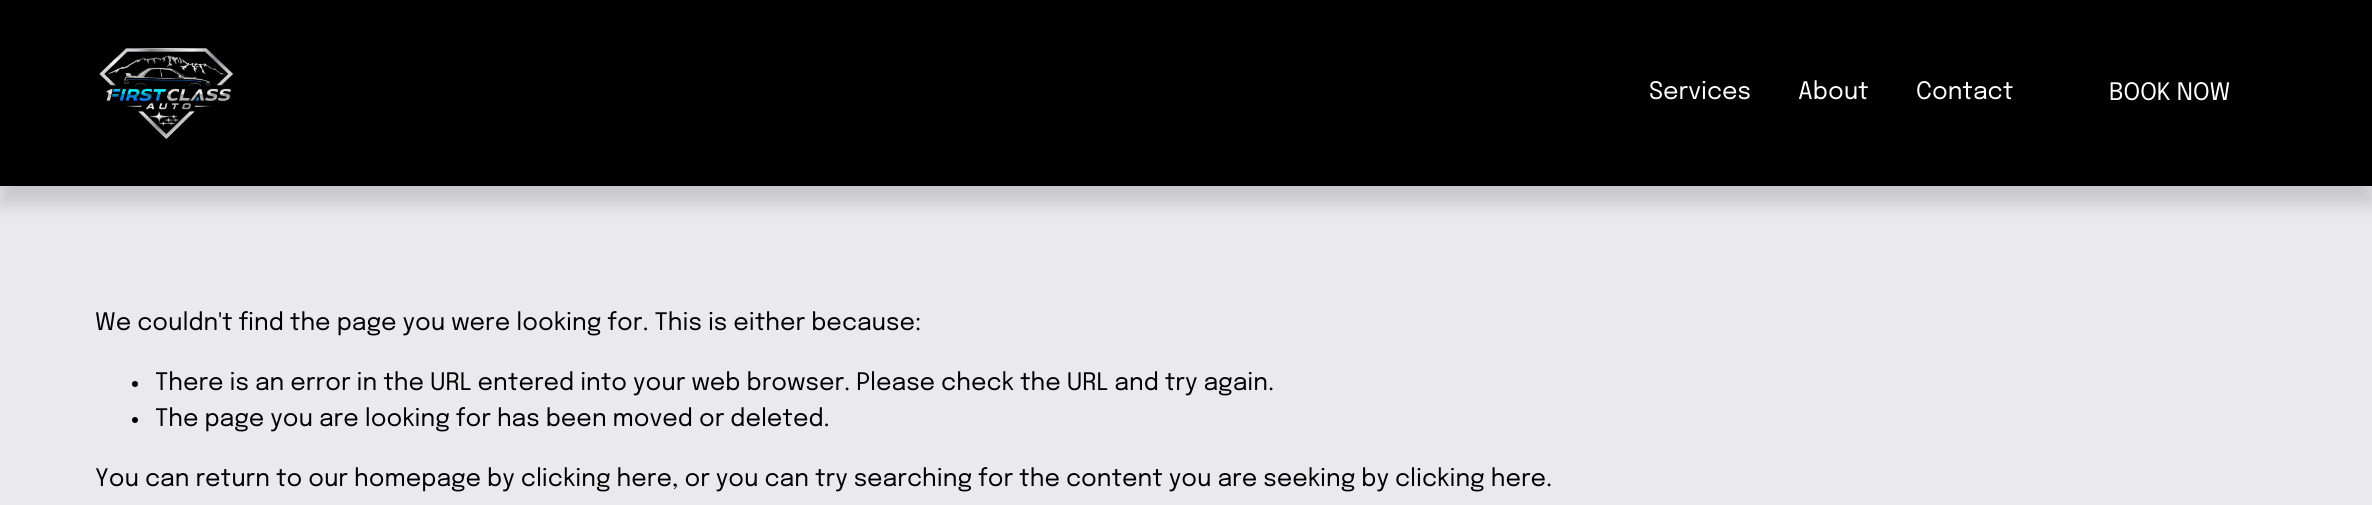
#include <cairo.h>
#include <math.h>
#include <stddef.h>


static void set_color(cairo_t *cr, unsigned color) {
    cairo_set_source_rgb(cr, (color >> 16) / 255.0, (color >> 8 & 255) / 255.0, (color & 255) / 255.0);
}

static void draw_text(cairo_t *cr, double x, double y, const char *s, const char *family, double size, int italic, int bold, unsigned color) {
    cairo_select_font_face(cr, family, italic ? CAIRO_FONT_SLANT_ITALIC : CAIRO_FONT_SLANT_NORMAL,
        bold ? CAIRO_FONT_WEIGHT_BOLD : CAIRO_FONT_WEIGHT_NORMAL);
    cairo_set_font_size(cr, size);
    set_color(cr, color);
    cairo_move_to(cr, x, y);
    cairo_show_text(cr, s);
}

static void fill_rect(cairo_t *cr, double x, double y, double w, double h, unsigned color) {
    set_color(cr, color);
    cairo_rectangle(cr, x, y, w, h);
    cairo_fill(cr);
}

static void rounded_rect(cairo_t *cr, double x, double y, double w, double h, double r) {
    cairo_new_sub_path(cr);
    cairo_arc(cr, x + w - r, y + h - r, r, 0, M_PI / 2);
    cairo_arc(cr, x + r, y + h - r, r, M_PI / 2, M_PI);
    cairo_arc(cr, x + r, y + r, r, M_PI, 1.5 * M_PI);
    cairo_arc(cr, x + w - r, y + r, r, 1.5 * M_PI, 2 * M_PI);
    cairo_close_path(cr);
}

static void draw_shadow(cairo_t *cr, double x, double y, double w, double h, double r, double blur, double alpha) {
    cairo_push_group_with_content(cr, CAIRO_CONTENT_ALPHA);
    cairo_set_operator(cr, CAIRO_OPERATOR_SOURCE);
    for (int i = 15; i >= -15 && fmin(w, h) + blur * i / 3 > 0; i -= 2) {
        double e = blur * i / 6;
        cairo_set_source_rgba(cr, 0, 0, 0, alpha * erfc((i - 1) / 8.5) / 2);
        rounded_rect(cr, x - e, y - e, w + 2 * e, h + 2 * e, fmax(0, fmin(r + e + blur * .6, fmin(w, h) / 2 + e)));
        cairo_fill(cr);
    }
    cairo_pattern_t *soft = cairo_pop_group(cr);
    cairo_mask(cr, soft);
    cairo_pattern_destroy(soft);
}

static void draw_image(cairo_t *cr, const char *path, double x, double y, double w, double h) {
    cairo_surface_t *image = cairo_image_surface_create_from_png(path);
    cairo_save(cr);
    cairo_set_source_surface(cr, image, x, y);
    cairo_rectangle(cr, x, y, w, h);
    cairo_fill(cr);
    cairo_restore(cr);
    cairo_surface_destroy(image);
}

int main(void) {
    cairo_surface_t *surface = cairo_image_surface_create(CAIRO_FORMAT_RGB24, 2372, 505);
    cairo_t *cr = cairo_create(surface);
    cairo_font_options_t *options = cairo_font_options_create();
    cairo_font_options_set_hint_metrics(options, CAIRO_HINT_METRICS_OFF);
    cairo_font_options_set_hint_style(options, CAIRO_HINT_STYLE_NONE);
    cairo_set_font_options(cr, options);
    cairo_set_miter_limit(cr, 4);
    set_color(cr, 0xEAEAEE);
    cairo_paint(cr);
    set_color(cr, 0xC7C7CA);
    draw_shadow(cr, 0, 18, 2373, 186, 0, 9, 1);
    fill_rect(cr, 0, 0, 2372, 186, 0x000000);
    draw_image(cr, "assets/img1.png", 99, 48, 135, 92);
    draw_text(cr, 1649, 99, "Services", "Epilogue", 24, 0, 0, 0xFFFFFF);
    draw_text(cr, 1798, 99, "About", "Epilogue", 24, 0, 0, 0xFFFFFF);
    draw_text(cr, 1916, 99, "Contact", "Epilogue", 24, 0, 0, 0xFFFFFF);
    draw_text(cr, 2109, 100, "BOOK NOW", "Epilogue", 24, 0, 0, 0xFFFFFF);
    draw_text(cr, 95, 330, "We couldn't find the page you were looking for. This is either because:", "Epilogue", 24, 0, 0, 0x000000);
    cairo_new_path(cr);
    cairo_arc(cr, 135, 384, 3, 0, 2 * M_PI);
    cairo_fill(cr);
    draw_text(cr, 155, 390, "There is an error in the URL entered into your web browser. Please check the URL and try again.", "Epilogue", 24, 0, 0, 0x000000);
    cairo_new_path(cr);
    cairo_arc(cr, 135, 420, 3, 0, 2 * M_PI);
    cairo_fill(cr);
    draw_text(cr, 155, 426, "The page you are looking for has been moved or deleted.", "Epilogue", 24, 0, 0, 0x000000);
    draw_text(cr, 95, 486, "You can return to our homepage by clicking here, or you can try searching for the content you are seeking by clicking here.", "Epilogue", 24, 0, 0, 0x000000);
    cairo_surface_write_to_png(surface, "output.png");
    cairo_font_options_destroy(options);
    cairo_destroy(cr);
    cairo_surface_destroy(surface);
    return 0;
}
